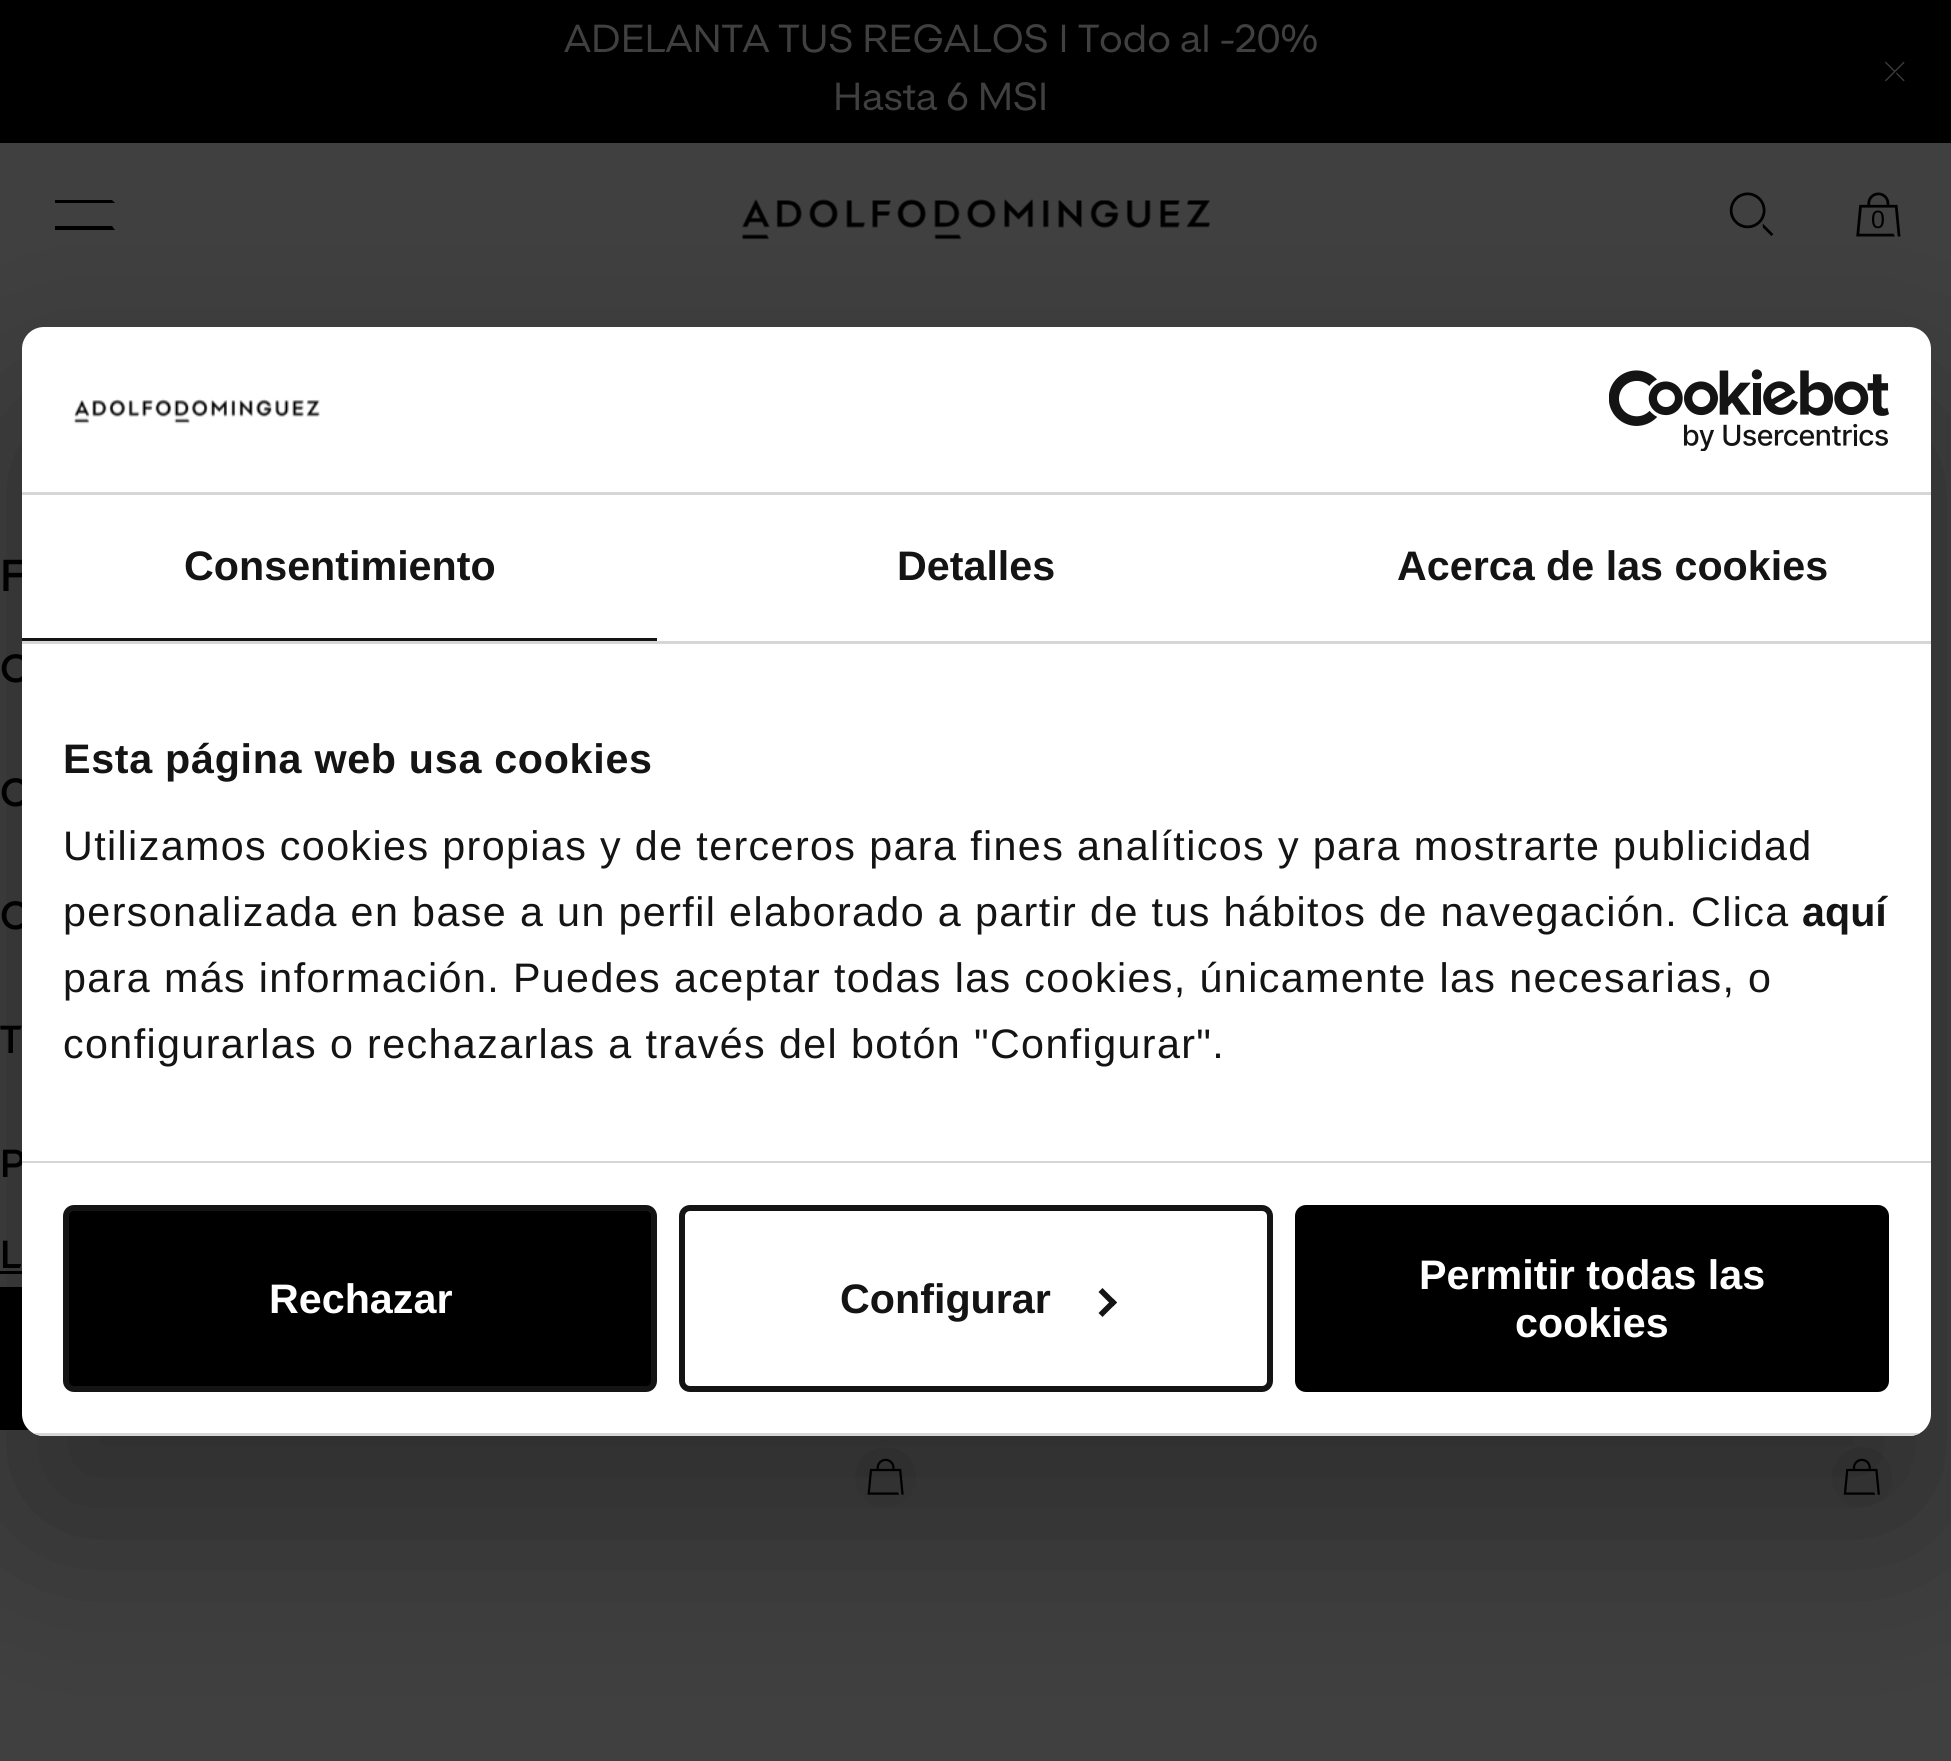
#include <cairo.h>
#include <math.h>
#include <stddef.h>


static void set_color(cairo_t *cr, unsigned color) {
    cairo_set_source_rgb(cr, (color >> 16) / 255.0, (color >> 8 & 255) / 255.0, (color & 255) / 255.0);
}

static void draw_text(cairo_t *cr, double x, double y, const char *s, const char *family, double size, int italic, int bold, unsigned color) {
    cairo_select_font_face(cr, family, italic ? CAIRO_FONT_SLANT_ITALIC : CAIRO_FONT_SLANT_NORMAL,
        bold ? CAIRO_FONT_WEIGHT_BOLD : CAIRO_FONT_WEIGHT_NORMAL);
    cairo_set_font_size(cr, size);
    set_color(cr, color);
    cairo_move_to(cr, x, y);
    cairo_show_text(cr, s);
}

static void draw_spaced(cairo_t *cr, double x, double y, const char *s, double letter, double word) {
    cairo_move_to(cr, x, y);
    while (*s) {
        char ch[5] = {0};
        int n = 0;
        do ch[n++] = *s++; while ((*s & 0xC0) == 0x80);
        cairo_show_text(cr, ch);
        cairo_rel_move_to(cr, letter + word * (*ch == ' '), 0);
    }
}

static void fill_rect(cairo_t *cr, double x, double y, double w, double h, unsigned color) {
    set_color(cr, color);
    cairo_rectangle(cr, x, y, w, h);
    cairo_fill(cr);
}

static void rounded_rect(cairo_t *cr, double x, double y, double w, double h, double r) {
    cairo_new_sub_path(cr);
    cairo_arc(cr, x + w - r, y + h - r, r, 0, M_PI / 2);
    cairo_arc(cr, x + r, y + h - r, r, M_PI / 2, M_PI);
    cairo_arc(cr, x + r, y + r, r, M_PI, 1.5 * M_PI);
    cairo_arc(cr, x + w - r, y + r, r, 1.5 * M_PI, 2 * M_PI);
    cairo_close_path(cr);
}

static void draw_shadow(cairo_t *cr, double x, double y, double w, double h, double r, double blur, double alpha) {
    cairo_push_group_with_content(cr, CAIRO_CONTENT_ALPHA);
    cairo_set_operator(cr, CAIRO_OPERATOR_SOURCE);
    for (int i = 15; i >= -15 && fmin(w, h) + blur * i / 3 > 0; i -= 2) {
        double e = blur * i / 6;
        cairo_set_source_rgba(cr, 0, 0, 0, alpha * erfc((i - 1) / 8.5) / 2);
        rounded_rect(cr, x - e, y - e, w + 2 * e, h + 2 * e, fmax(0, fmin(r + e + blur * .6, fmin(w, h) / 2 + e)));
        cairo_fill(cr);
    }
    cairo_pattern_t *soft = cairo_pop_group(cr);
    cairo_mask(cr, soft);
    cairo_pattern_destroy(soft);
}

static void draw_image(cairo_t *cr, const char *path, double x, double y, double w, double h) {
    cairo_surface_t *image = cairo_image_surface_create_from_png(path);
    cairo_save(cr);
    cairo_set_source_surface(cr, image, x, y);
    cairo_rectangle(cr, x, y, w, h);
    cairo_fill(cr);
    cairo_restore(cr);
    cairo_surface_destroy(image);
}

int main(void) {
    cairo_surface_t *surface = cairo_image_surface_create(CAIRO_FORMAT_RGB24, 1951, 1761);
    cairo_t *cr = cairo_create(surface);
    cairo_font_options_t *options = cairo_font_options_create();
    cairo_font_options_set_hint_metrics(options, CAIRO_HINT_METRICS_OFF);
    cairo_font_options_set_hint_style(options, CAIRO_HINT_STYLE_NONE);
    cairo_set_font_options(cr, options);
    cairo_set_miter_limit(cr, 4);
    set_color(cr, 0x404040);
    cairo_paint(cr);
    fill_rect(cr, 0, 0, 1951, 143, 0x000000);
    draw_text(cr, 564, 52, "ADELANTA TUS REGALOS | Todo al -20%", "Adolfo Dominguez", 38.5, 0, 0, 0x404040);
    draw_text(cr, 833, 110, "Hasta 6 MSI", "Adolfo Dominguez", 38.5, 0, 0, 0x404040);
    draw_image(cr, "assets/img1.png", 1885, 61, 20, 21);
    set_color(cr, 0x000000);
    cairo_set_fill_rule(cr, CAIRO_FILL_RULE_EVEN_ODD);
    cairo_new_path(cr);
    cairo_move_to(cr, 55, 230);
    cairo_line_to(cr, 115, 230);
    cairo_line_to(cr, 112, 226);
    cairo_line_to(cr, 55, 226);
    cairo_close_path(cr);
    cairo_move_to(cr, 55, 200);
    cairo_line_to(cr, 55, 203);
    cairo_line_to(cr, 115, 203);
    cairo_line_to(cr, 112, 200);
    cairo_close_path(cr);
    cairo_fill(cr);
    draw_image(cr, "assets/img2.png", 742, 199, 468, 41);
    draw_image(cr, "assets/img3.png", 1729, 192, 45, 44);
    draw_image(cr, "assets/img4.png", 1856, 192, 45, 45);
    draw_text(cr, 1871, 228, "0", "Liberation Sans", 25, 0, 0, 0x000000);
    draw_text(cr, 0, 591, "F", "Adolfo Dominguez SemiBold", 44, 0, 0, 0x000000);
    draw_text(cr, 0, 682, "O", "Adolfo Dominguez SemiBold", 38.5, 0, 0, 0x000000);
    draw_text(cr, 0, 806, "C", "Adolfo Dominguez SemiBold", 38.5, 0, 0, 0x000000);
    draw_text(cr, 0, 929, "C", "Adolfo Dominguez SemiBold", 38.5, 0, 0, 0x000000);
    draw_text(cr, 0, 1053, "T", "Adolfo Dominguez SemiBold", 38.5, 0, 0, 0x000000);
    draw_text(cr, 0, 1177, "P", "Adolfo Dominguez SemiBold", 38.5, 0, 0, 0x000000);
    draw_text(cr, 0, 1268, "L", "Adolfo Dominguez SemiBold", 38.5, 0, 0, 0x000000);
    fill_rect(cr, 0, 1271, 22, 3, 0x000000);
    fill_rect(cr, 0, 1287, 29, 143, 0x000000);
    set_color(cr, 0x3D3D3D);
    rounded_rect(cr, 855, 1447, 61, 60, 30);
    cairo_fill(cr);
    draw_image(cr, "assets/img5.png", 867, 1458, 37, 37);
    cairo_arc(cr, 1862, 1477, 30, 0, 2 * M_PI);
    cairo_fill(cr);
    draw_image(cr, "assets/img6.png", 1843, 1458, 37, 37);
    set_color(cr, 0x000000);
    draw_shadow(cr, 22, 415, 1909, 1109, 22, 93.5, 0.3);
    set_color(cr, 0xFFFFFF);
    rounded_rect(cr, 22, 327, 1909, 1109, 22);
    cairo_fill(cr);
    fill_rect(cr, 22, 492, 1909, 3, 0xD6D6D6);
    draw_image(cr, "assets/img7.png", 73, 398, 247, 26);
    draw_image(cr, "assets/img8.png", 1609, 369, 280, 82);
    fill_rect(cr, 22, 641, 1909, 3, 0xD6D6D6);
    fill_rect(cr, 22, 638, 635, 3, 0x141414);
    draw_text(cr, 184, 580, "Consentimiento", "Liberation Sans", 41.25, 0, 1, 0x141414);
    draw_text(cr, 897, 580, "Detalles", "Liberation Sans", 41.25, 0, 1, 0x141414);
    draw_text(cr, 1397, 580, "Acerca de las cookies", "Liberation Sans", 41.25, 0, 1, 0x141414);
    fill_rect(cr, 22, 1161, 1909, 2, 0xD6D6D6);
    set_color(cr, 0x141414);
    draw_spaced(cr, 63, 773, "Esta página web usa cookies", 0.7, 0);
    cairo_select_font_face(cr, "Liberation Sans", CAIRO_FONT_SLANT_NORMAL, CAIRO_FONT_WEIGHT_NORMAL);
    draw_spaced(cr, 63, 860, "Utilizamos cookies propias y de terceros para fines analíticos y para mostrarte publicidad", 1.38, 0);
    draw_spaced(cr, 63, 926, "personalizada en base a un perfil elaborado a partir de tus hábitos de navegación. Clica", 1.38, 0);
    draw_text(cr, 1802, 926, "aquí", "Liberation Sans", 41.25, 0, 1, 0x141414);
    cairo_select_font_face(cr, "Liberation Sans", CAIRO_FONT_SLANT_NORMAL, CAIRO_FONT_WEIGHT_NORMAL);
    draw_spaced(cr, 63, 992, "para más información. Puedes aceptar todas las cookies, únicamente las necesarias, o", 1.38, 0);
    draw_spaced(cr, 63, 1058, "configurarlas o rechazarlas a través del botón \"Configurar\".", 1.38, 0);
    cairo_save(cr);
    cairo_set_fill_rule(cr, CAIRO_FILL_RULE_WINDING);
    rounded_rect(cr, 22, 327, 1909, 1109, 22);
    cairo_clip(cr);
    fill_rect(cr, 33, 1433, 1887, 3, 0xD6D6D6);
    cairo_restore(cr);
    set_color(cr, 0x000000);
    rounded_rect(cr, 66, 1208, 588, 181, 8);
    cairo_fill_preserve(cr);
    set_color(cr, 0x141414);
    cairo_set_line_width(cr, 6);
    cairo_stroke(cr);
    draw_text(cr, 269, 1313, "Rechazar", "Liberation Sans", 41.25, 0, 1, 0xFFFFFF);
    rounded_rect(cr, 682, 1208, 588, 181, 8);
    set_color(cr, 0x141414);
    cairo_stroke(cr);
    draw_text(cr, 840, 1313, "Configurar", "Liberation Sans", 41.25, 0, 1, 0x141414);
    cairo_set_fill_rule(cr, CAIRO_FILL_RULE_WINDING);
    cairo_new_path(cr);
    cairo_move_to(cr, 1102.5, 1288);
    cairo_line_to(cr, 1117, 1302.5);
    cairo_line_to(cr, 1113, 1306.5);
    cairo_line_to(cr, 1098.5, 1292);
    cairo_close_path(cr);
    cairo_fill(cr);
    cairo_new_path(cr);
    cairo_move_to(cr, 1113, 1298.5);
    cairo_line_to(cr, 1117, 1302.5);
    cairo_line_to(cr, 1102.5, 1317);
    cairo_line_to(cr, 1098.5, 1313);
    cairo_close_path(cr);
    cairo_fill(cr);
    set_color(cr, 0x000000);
    rounded_rect(cr, 1298, 1208, 588, 181, 8);
    cairo_fill_preserve(cr);
    cairo_stroke(cr);
    draw_text(cr, 1419, 1289, "Permitir todas las", "Liberation Sans", 41.25, 0, 1, 0xFFFFFF);
    draw_text(cr, 1515, 1337, "cookies", "Liberation Sans", 41.25, 0, 1, 0xFFFFFF);
    cairo_surface_write_to_png(surface, "output.png");
    cairo_font_options_destroy(options);
    cairo_destroy(cr);
    cairo_surface_destroy(surface);
    return 0;
}
